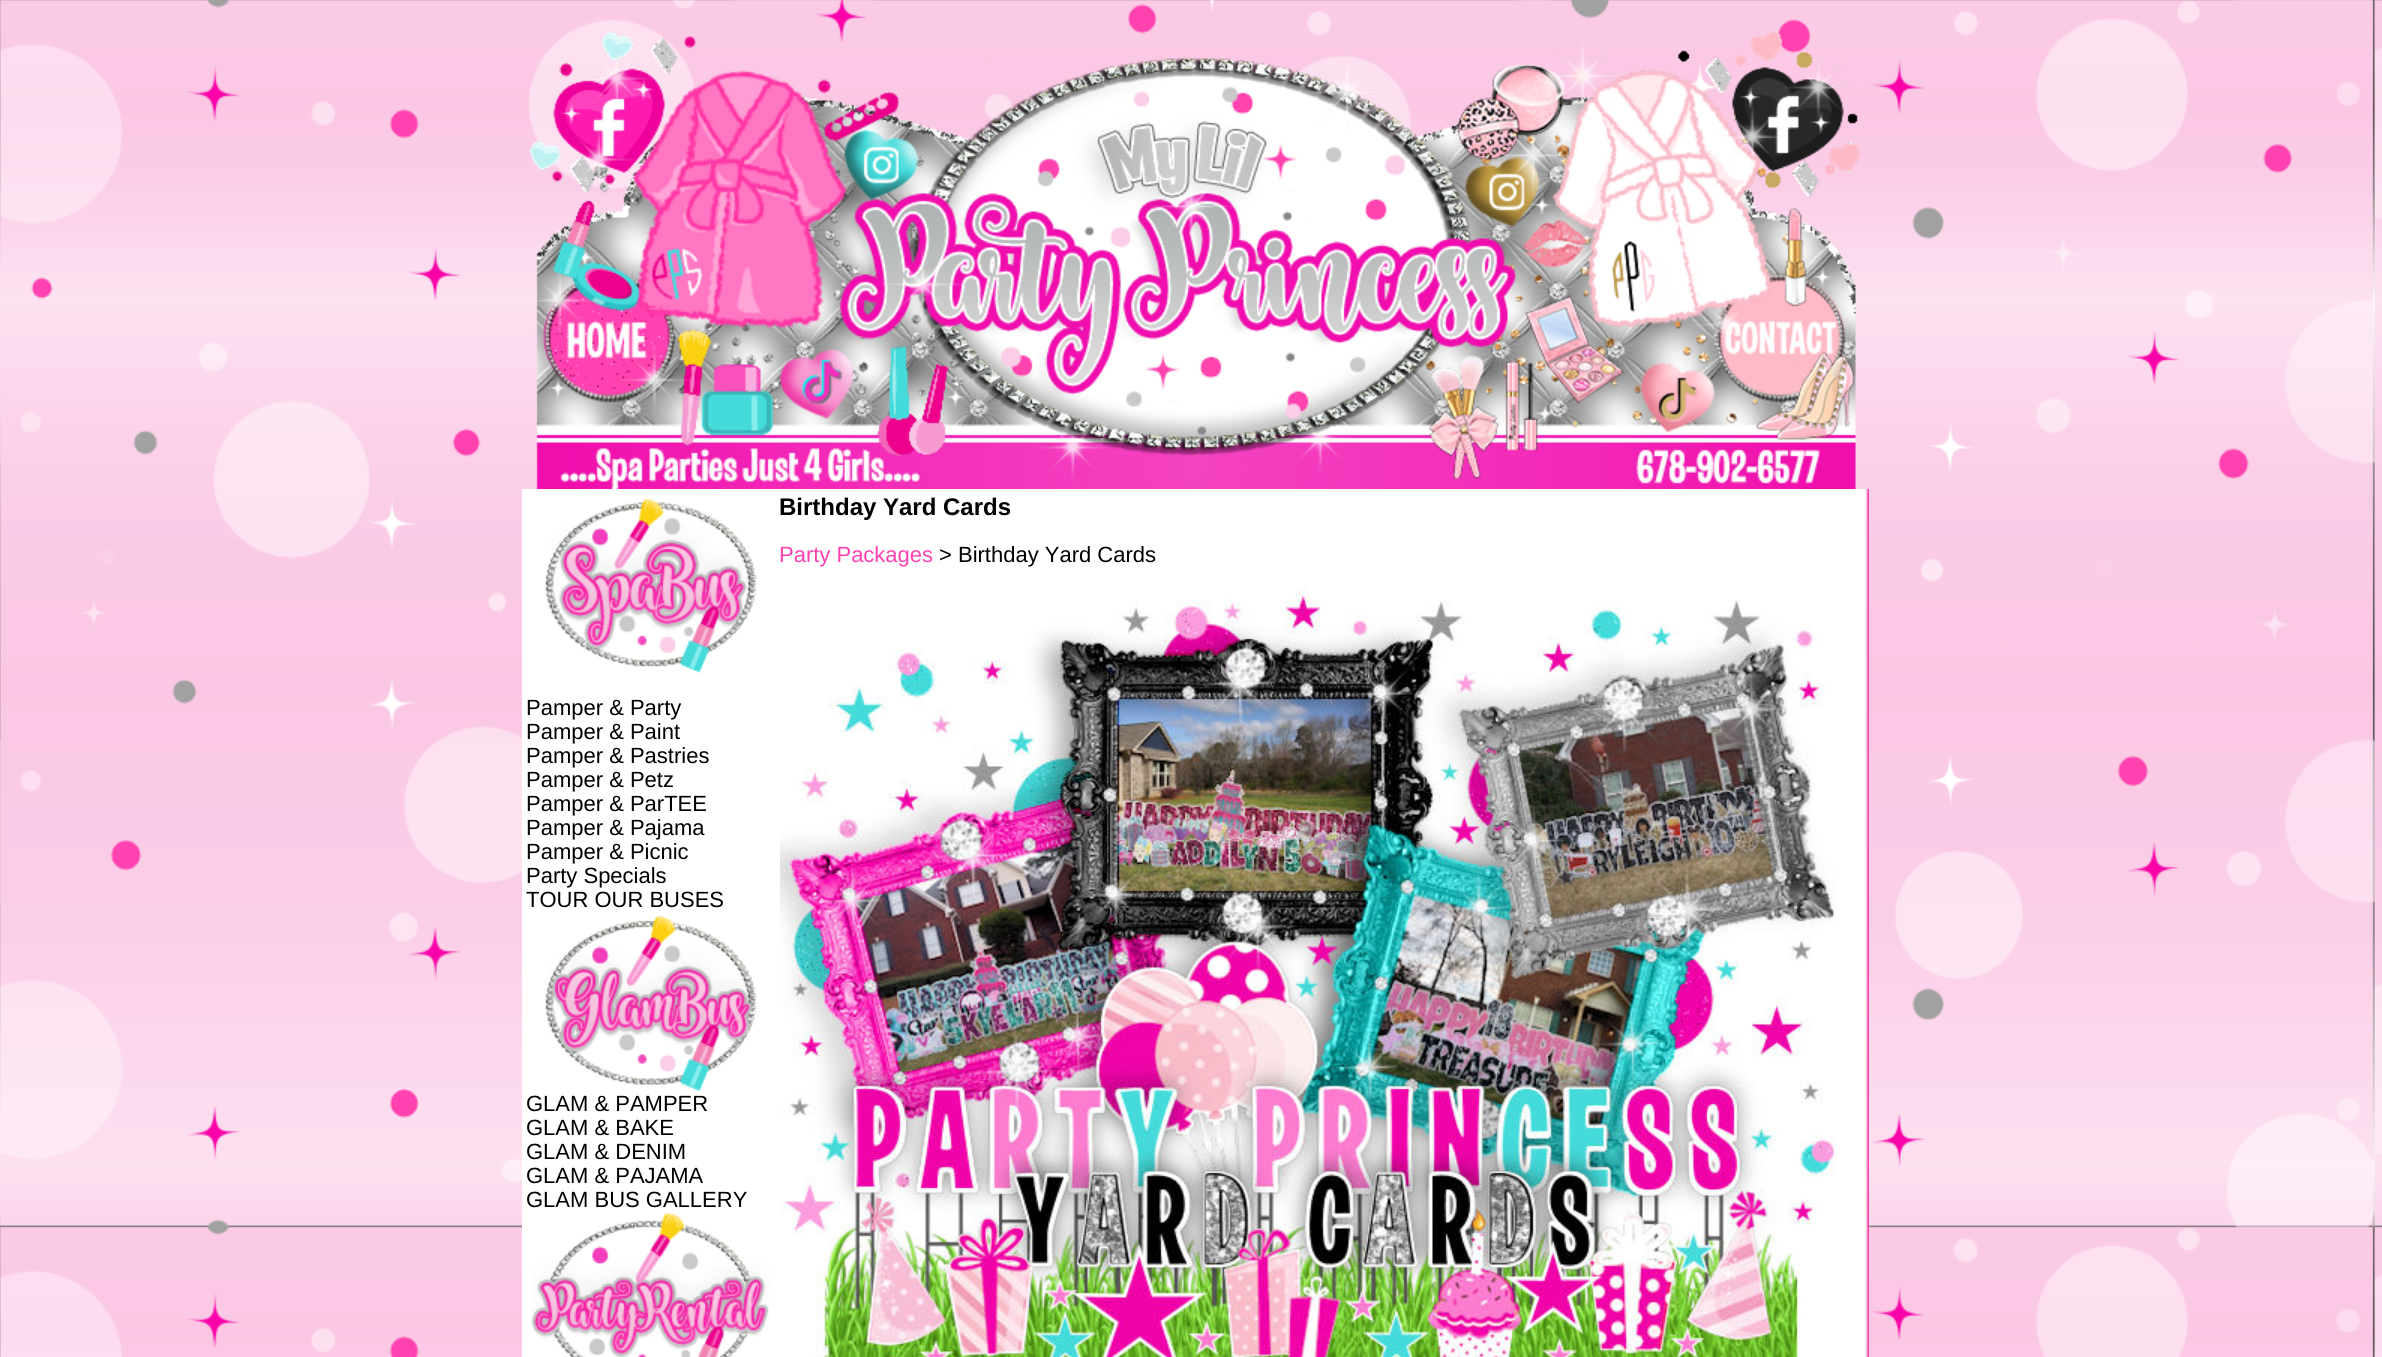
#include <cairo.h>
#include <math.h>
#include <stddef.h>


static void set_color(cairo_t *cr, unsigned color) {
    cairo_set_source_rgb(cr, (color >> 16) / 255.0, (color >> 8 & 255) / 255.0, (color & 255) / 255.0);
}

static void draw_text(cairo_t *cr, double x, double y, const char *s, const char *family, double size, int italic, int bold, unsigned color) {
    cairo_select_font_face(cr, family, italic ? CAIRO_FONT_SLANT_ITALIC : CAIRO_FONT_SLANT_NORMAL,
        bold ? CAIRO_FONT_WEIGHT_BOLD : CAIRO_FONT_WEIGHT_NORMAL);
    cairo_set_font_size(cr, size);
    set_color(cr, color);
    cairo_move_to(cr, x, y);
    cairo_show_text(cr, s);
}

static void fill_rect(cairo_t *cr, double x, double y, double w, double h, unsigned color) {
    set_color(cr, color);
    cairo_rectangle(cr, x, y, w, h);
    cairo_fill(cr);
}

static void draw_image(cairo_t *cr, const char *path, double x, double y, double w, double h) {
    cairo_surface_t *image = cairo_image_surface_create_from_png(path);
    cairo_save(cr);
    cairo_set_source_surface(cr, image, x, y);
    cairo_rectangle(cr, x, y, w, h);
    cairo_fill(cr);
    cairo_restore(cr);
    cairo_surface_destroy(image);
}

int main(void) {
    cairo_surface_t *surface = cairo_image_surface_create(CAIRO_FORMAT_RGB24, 2382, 1357);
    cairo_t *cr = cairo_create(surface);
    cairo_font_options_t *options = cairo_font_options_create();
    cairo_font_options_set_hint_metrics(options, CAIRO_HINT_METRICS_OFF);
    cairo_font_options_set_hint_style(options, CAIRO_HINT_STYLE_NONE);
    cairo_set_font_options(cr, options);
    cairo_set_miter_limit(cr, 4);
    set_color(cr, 0xFFFFFF);
    cairo_paint(cr);
    draw_image(cr, "assets/img1.png", 0, 0, 2382, 1357);
    draw_image(cr, "assets/img2.png", 529, 31, 1332, 458);
    fill_rect(cr, 522, 489, 1343, 868, 0xFFFFFF);
    draw_text(cr, 779, 515, "Birthday Yard Cards", "Liberation Sans", 24, 0, 1, 0x000000);
    draw_text(cr, 779, 562, "Party Packages", "Liberation Sans", 22, 0, 0, 0xFF42AF);
    draw_text(cr, 939, 562, "> Birthday Yard Cards", "Liberation Sans", 22, 0, 0, 0x000000);
    draw_image(cr, "assets/img3.png", 780, 588, 1056, 769);
    draw_image(cr, "assets/img4.png", 545, 498, 212, 175);
    draw_text(cr, 526, 715, "Pamper & Party", "Liberation Sans", 22, 0, 0, 0x000000);
    draw_text(cr, 526, 739, "Pamper & Paint", "Liberation Sans", 22, 0, 0, 0x000000);
    draw_text(cr, 526, 763, "Pamper & Pastries", "Liberation Sans", 22, 0, 0, 0x000000);
    draw_text(cr, 526, 787, "Pamper & Petz", "Liberation Sans", 22, 0, 0, 0x000000);
    draw_text(cr, 526, 811, "Pamper & ParTEE", "Liberation Sans", 22, 0, 0, 0x000000);
    draw_text(cr, 526, 835, "Pamper & Pajama", "Liberation Sans", 22, 0, 0, 0x000000);
    draw_text(cr, 526, 859, "Pamper & Picnic", "Liberation Sans", 22, 0, 0, 0x000000);
    draw_text(cr, 526, 883, "Party Specials", "Liberation Sans", 22, 0, 0, 0x000000);
    draw_text(cr, 526, 907, "TOUR OUR BUSES", "Liberation Sans", 22, 0, 0, 0x000000);
    draw_image(cr, "assets/img5.png", 545, 915, 212, 176);
    draw_text(cr, 526, 1111, "GLAM & PAMPER", "Liberation Sans", 22, 0, 0, 0x000000);
    draw_text(cr, 526, 1135, "GLAM & BAKE", "Liberation Sans", 22, 0, 0, 0x000000);
    draw_text(cr, 526, 1159, "GLAM & DENIM", "Liberation Sans", 22, 0, 0, 0x000000);
    draw_text(cr, 526, 1183, "GLAM & PAJAMA", "Liberation Sans", 22, 0, 0, 0x000000);
    draw_text(cr, 526, 1207, "GLAM BUS GALLERY", "Liberation Sans", 22, 0, 0, 0x000000);
    draw_image(cr, "assets/img6.png", 531, 1212, 239, 145);
    draw_image(cr, "assets/img7.png", 1865, 489, 4, 868);
    cairo_surface_write_to_png(surface, "output.png");
    cairo_font_options_destroy(options);
    cairo_destroy(cr);
    cairo_surface_destroy(surface);
    return 0;
}
